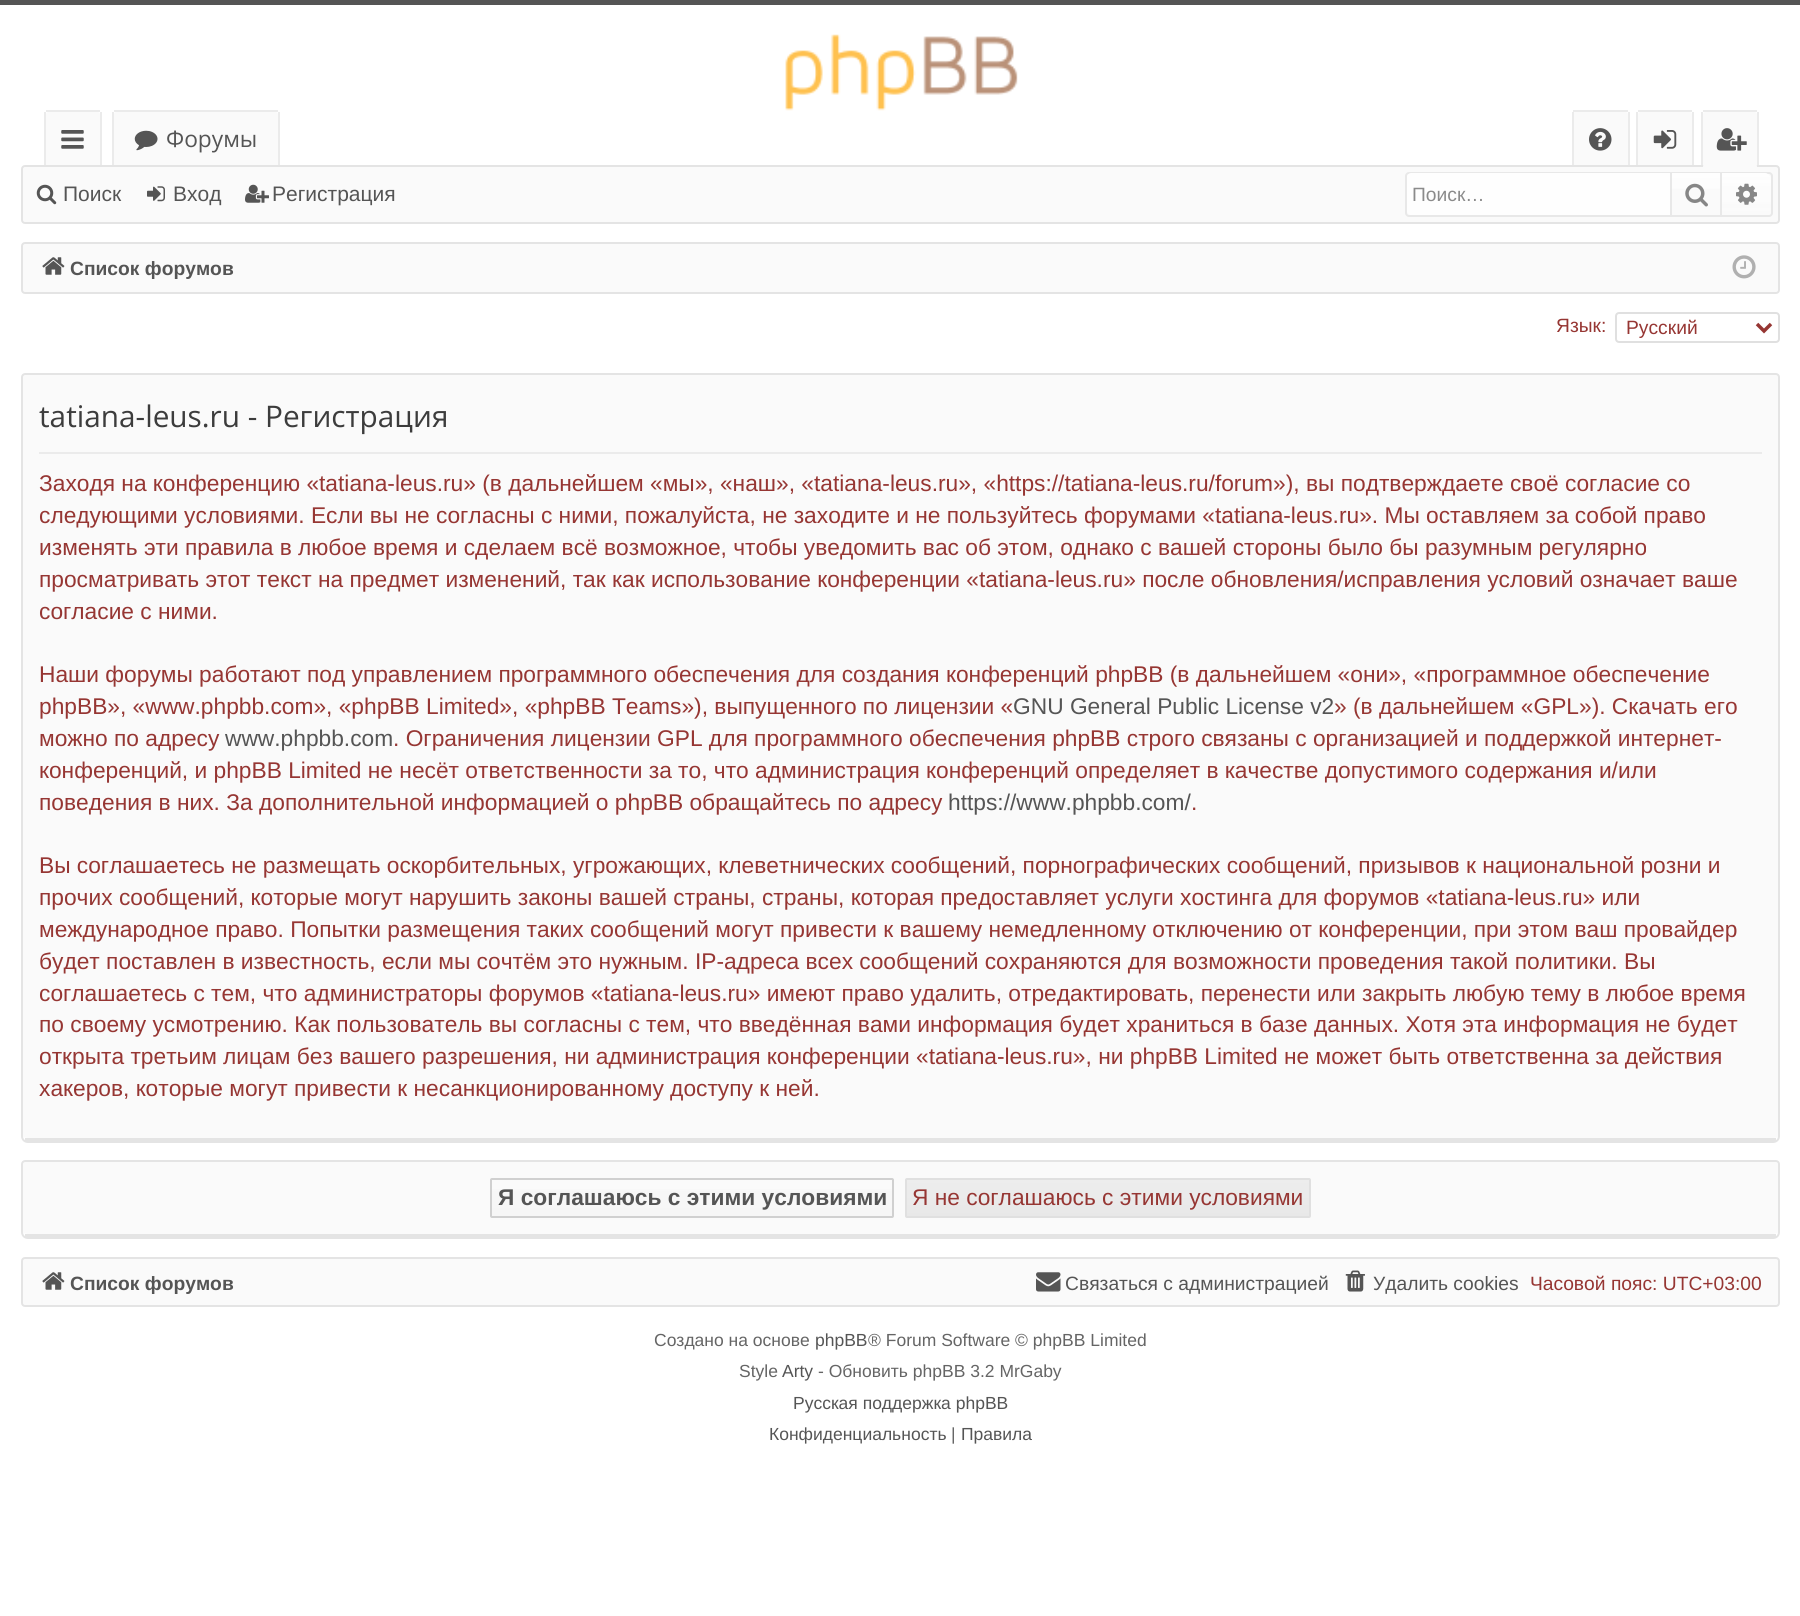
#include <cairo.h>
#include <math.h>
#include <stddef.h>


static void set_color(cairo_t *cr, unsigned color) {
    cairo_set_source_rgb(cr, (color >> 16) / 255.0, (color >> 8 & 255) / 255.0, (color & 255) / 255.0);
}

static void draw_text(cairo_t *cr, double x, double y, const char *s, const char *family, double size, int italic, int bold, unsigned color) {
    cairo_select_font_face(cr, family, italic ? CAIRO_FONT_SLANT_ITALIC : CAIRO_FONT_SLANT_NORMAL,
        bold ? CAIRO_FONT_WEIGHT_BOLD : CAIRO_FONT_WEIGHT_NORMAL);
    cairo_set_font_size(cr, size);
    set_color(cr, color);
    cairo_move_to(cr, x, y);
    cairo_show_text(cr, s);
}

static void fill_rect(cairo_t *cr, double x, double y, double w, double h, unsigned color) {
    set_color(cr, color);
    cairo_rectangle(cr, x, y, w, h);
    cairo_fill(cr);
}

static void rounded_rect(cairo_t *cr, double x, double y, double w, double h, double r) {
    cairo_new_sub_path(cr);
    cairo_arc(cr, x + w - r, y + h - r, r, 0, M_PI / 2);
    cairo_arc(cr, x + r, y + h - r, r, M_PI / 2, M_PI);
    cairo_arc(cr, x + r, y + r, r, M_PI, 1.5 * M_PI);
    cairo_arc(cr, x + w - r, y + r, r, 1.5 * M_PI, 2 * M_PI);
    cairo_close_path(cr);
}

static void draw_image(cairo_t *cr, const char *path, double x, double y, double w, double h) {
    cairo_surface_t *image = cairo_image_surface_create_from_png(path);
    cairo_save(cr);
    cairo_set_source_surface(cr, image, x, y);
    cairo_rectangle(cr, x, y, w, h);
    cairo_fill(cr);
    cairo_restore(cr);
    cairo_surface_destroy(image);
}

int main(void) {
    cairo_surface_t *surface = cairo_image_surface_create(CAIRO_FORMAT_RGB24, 1800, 1616);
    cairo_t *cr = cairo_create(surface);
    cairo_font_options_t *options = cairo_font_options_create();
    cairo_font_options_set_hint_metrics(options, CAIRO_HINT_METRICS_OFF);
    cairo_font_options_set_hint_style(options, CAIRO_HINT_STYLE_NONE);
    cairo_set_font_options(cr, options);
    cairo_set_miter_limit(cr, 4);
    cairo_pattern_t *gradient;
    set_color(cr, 0xFFFFFF);
    cairo_paint(cr);
    fill_rect(cr, 0, 0, 1800, 5, 0x555555);
    draw_image(cr, "assets/img1.png", 785, 34, 233, 77);
    set_color(cr, 0xFAFAFA);
    cairo_new_path(cr);
    cairo_move_to(cr, 48, 112);
    cairo_line_to(cr, 98, 112);
    cairo_curve_to(cr, 99, 112, 100, 113, 100, 114);
    cairo_line_to(cr, 100, 166);
    cairo_line_to(cr, 46, 166);
    cairo_line_to(cr, 46, 114);
    cairo_curve_to(cr, 46, 113, 47, 112, 48, 112);
    cairo_close_path(cr);
    cairo_fill(cr);
    fill_rect(cr, 46, 110, 54, 2, 0xEBEBEB);
    fill_rect(cr, 100, 112, 2, 54, 0xEBEBEB);
    fill_rect(cr, 44, 112, 2, 54, 0xEBEBEB);
    draw_image(cr, "assets/img2.png", 61, 130, 23, 19);
    set_color(cr, 0xFAFAFA);
    cairo_new_path(cr);
    cairo_move_to(cr, 116, 112);
    cairo_line_to(cr, 276, 112);
    cairo_curve_to(cr, 277, 112, 278, 113, 278, 114);
    cairo_line_to(cr, 278, 166);
    cairo_line_to(cr, 114, 166);
    cairo_line_to(cr, 114, 114);
    cairo_curve_to(cr, 114, 113, 115, 112, 116, 112);
    cairo_close_path(cr);
    cairo_fill(cr);
    fill_rect(cr, 114, 110, 164, 2, 0xEBEBEB);
    fill_rect(cr, 278, 112, 2, 54, 0xEBEBEB);
    fill_rect(cr, 112, 112, 2, 54, 0xEBEBEB);
    draw_image(cr, "assets/img3.png", 134, 130, 24, 21);
    draw_text(cr, 166, 147, "Форумы", "Open Sans", 22.75, 0, 0, 0x555555);
    set_color(cr, 0xFAFAFA);
    cairo_new_path(cr);
    cairo_move_to(cr, 1575, 112);
    cairo_line_to(cr, 1626, 112);
    cairo_curve_to(cr, 1627, 112, 1628, 113, 1628, 114);
    cairo_line_to(cr, 1628, 166);
    cairo_line_to(cr, 1573, 166);
    cairo_line_to(cr, 1573, 114);
    cairo_curve_to(cr, 1573, 113, 1574, 112, 1575, 112);
    cairo_close_path(cr);
    cairo_fill(cr);
    fill_rect(cr, 1573, 110, 55, 2, 0xEBEBEB);
    fill_rect(cr, 1628, 112, 2, 54, 0xEBEBEB);
    fill_rect(cr, 1572, 112, 2, 54, 0xEBEBEB);
    draw_image(cr, "assets/img4.png", 1589, 128, 23, 23);
    set_color(cr, 0xFAFAFA);
    cairo_new_path(cr);
    cairo_move_to(cr, 1640, 112);
    cairo_line_to(cr, 1690, 112);
    cairo_curve_to(cr, 1691, 112, 1692, 113, 1692, 114);
    cairo_line_to(cr, 1692, 166);
    cairo_line_to(cr, 1638, 166);
    cairo_line_to(cr, 1638, 114);
    cairo_curve_to(cr, 1638, 113, 1639, 112, 1640, 112);
    cairo_close_path(cr);
    cairo_fill(cr);
    fill_rect(cr, 1638, 110, 54, 2, 0xEBEBEB);
    fill_rect(cr, 1692, 112, 2, 54, 0xEBEBEB);
    fill_rect(cr, 1636, 112, 2, 54, 0xEBEBEB);
    draw_image(cr, "assets/img5.png", 1653, 130, 24, 19);
    set_color(cr, 0xFAFAFA);
    cairo_new_path(cr);
    cairo_move_to(cr, 1705, 112);
    cairo_line_to(cr, 1755, 112);
    cairo_curve_to(cr, 1756, 112, 1757, 113, 1757, 114);
    cairo_line_to(cr, 1757, 166);
    cairo_line_to(cr, 1703, 166);
    cairo_line_to(cr, 1703, 114);
    cairo_curve_to(cr, 1703, 113, 1704, 112, 1705, 112);
    cairo_close_path(cr);
    cairo_fill(cr);
    fill_rect(cr, 1703, 110, 54, 2, 0xEBEBEB);
    fill_rect(cr, 1757, 112, 2, 54, 0xEBEBEB);
    fill_rect(cr, 1701, 112, 2, 54, 0xEBEBEB);
    draw_image(cr, "assets/img6.png", 1716, 128, 31, 23);
    set_color(cr, 0xFAFAFA);
    rounded_rect(cr, 22, 166, 1757, 57, 3);
    cairo_fill_preserve(cr);
    set_color(cr, 0xE4E4E4);
    cairo_stroke(cr);
    set_color(cr, 0xFAFAFA);
    cairo_new_path(cr);
    cairo_move_to(cr, 1706.5, 163);
    cairo_line_to(cr, 1753.5, 163);
    cairo_curve_to(cr, 1755.5, 163, 1757, 164.5, 1757, 166.5);
    cairo_line_to(cr, 1757, 170);
    cairo_line_to(cr, 1703, 170);
    cairo_line_to(cr, 1703, 166.5);
    cairo_curve_to(cr, 1703, 164.5, 1704.5, 163, 1706.5, 163);
    cairo_close_path(cr);
    cairo_fill(cr);
    draw_image(cr, "assets/img7.png", 36, 184, 21, 21);
    draw_text(cr, 63, 201, "Поиск", "Liberation Sans", 21, 0, 0, 0x555555);
    draw_image(cr, "assets/img8.png", 147, 186, 18, 16);
    draw_text(cr, 173, 201, "Вход", "Liberation Sans", 21, 0, 0, 0x555555);
    draw_image(cr, "assets/img9.png", 245, 184, 24, 19);
    draw_text(cr, 272, 201, "Регистрация", "Liberation Sans", 21, 0, 0, 0x555555);
    rounded_rect(cr, 1406, 173, 366, 43, 3);
    set_color(cr, 0xE8E8E8);
    cairo_stroke(cr);
    set_color(cr, 0xFEFEFE);
    cairo_new_path(cr);
    cairo_move_to(cr, 1411, 173);
    cairo_line_to(cr, 1670, 173);
    cairo_line_to(cr, 1670, 215);
    cairo_line_to(cr, 1411, 215);
    cairo_curve_to(cr, 1409, 215, 1407, 213, 1407, 211);
    cairo_line_to(cr, 1407, 177);
    cairo_curve_to(cr, 1407, 175, 1409, 173, 1411, 173);
    cairo_close_path(cr);
    cairo_fill(cr);
    draw_text(cr, 1412, 201, "Поиск…", "Liberation Sans", 19.25, 0, 0, 0x8B8B8B);
    gradient = cairo_pattern_create_linear(1696, 173, 1696, 215);
    cairo_pattern_add_color_stop_rgba(gradient, 0, 0.996, 0.996, 0.996, 1);
    cairo_pattern_add_color_stop_rgba(gradient, 1, 0.98, 0.98, 0.98, 1);
    cairo_set_source(cr, gradient);
    cairo_pattern_destroy(gradient);
    cairo_rectangle(cr, 1672, 173, 48, 16);
    cairo_fill(cr);
    fill_rect(cr, 1720, 173, 2, 42, 0xE8E8E8);
    fill_rect(cr, 1670, 173, 2, 42, 0xE8E8E8);
    draw_image(cr, "assets/img10.png", 1685, 183, 23, 24);
    set_color(cr, 0xFAFAFA);
    cairo_new_path(cr);
    cairo_move_to(cr, 1722, 173);
    cairo_line_to(cr, 1764, 173);
    cairo_curve_to(cr, 1768, 173, 1771, 176, 1771, 180);
    cairo_line_to(cr, 1771, 208);
    cairo_curve_to(cr, 1771, 212, 1768, 215, 1764, 215);
    cairo_line_to(cr, 1722, 215);
    cairo_close_path(cr);
    cairo_fill(cr);
    gradient = cairo_pattern_create_linear(1747, 173, 1747, 215);
    cairo_pattern_add_color_stop_rgba(gradient, 0, 0.996, 0.996, 0.996, 1);
    cairo_pattern_add_color_stop_rgba(gradient, 1, 0.996, 0.996, 0.996, 0);
    cairo_set_source(cr, gradient);
    cairo_pattern_destroy(gradient);
    cairo_new_path(cr);
    cairo_move_to(cr, 1722, 173);
    cairo_line_to(cr, 1764, 173);
    cairo_curve_to(cr, 1768, 173, 1771, 176, 1771, 180);
    cairo_line_to(cr, 1771, 208);
    cairo_curve_to(cr, 1771, 212, 1768, 215, 1764, 215);
    cairo_line_to(cr, 1722, 215);
    cairo_close_path(cr);
    cairo_fill(cr);
    draw_image(cr, "assets/img11.png", 1736, 183, 21, 22);
    set_color(cr, 0xFAFAFA);
    rounded_rect(cr, 22, 243, 1757, 50, 3);
    cairo_fill_preserve(cr);
    set_color(cr, 0xE4E4E4);
    cairo_stroke(cr);
    draw_image(cr, "assets/img12.png", 42, 257, 23, 18);
    draw_text(cr, 70, 275, "Список форумов", "Liberation Sans", 19.25, 0, 1, 0x555555);
    draw_image(cr, "assets/img13.png", 1732, 255, 24, 24);
    draw_text(cr, 1556, 332, "Язык:", "Liberation Sans", 19.25, 0, 0, 0x963633);
    rounded_rect(cr, 1616, 313, 163, 29, 3);
    set_color(cr, 0xE0E0E0);
    cairo_stroke(cr);
    cairo_new_path(cr);
    cairo_move_to(cr, 1757, 324);
    cairo_line_to(cr, 1764, 331);
    cairo_line_to(cr, 1771, 324);
    set_color(cr, 0x963633);
    cairo_set_line_width(cr, 3.5);
    cairo_stroke(cr);
    draw_text(cr, 1626, 334, "Русский", "Liberation Sans", 19.25, 0, 0, 0x963633);
    set_color(cr, 0xFAFAFA);
    cairo_new_path(cr);
    cairo_move_to(cr, 24, 374);
    cairo_line_to(cr, 1776, 374);
    cairo_curve_to(cr, 1777, 374, 1778, 375, 1778, 376);
    cairo_line_to(cr, 1778, 1136);
    cairo_curve_to(cr, 1778, 1137, 1776, 1138, 1773, 1138);
    cairo_line_to(cr, 28, 1138);
    cairo_curve_to(cr, 25, 1138, 23, 1137, 23, 1136);
    cairo_line_to(cr, 23, 376);
    cairo_curve_to(cr, 23, 375, 24, 374, 24, 374);
    cairo_close_path(cr);
    cairo_fill(cr);
    cairo_new_path(cr);
    cairo_move_to(cr, 25, 374);
    cairo_line_to(cr, 1776, 374);
    cairo_curve_to(cr, 1777.5, 374, 1779, 375.5, 1779, 377);
    cairo_line_to(cr, 1779, 1136);
    cairo_curve_to(cr, 1779, 1139.5, 1776.5, 1142, 1773, 1142);
    cairo_line_to(cr, 28, 1142);
    cairo_curve_to(cr, 24.5, 1142, 22, 1139.5, 22, 1136);
    cairo_line_to(cr, 22, 377);
    cairo_curve_to(cr, 22, 375.5, 23.5, 374, 25, 374);
    cairo_close_path(cr);
    set_color(cr, 0xE4E4E4);
    cairo_set_line_width(cr, 2);
    cairo_stroke(cr);
    fill_rect(cr, 25, 1138, 1751, 3, 0xE4E4E4);
    fill_rect(cr, 39, 452, 1723, 2, 0xEBEBEB);
    draw_text(cr, 39, 427, "tatiana-leus.ru - Регистрация", "Open Sans", 29.75, 0, 0, 0x3C3C3C);
    draw_text(cr, 39, 491, "Заходя на конференцию «tatiana-leus.ru» (в дальнейшем «мы», «наш», «tatiana-leus.ru», «https://tatiana-leus.ru/forum»), вы подтверждаете своё согласие со", "Liberation Sans", 22.75, 0, 0, 0x963633);
    draw_text(cr, 39, 523, "следующими условиями. Если вы не согласны с ними, пожалуйста, не заходите и не пользуйтесь форумами «tatiana-leus.ru». Мы оставляем за собой право", "Liberation Sans", 22.75, 0, 0, 0x963633);
    draw_text(cr, 39, 555, "изменять эти правила в любое время и сделаем всё возможное, чтобы уведомить вас об этом, однако с вашей стороны было бы разумным регулярно", "Liberation Sans", 22.75, 0, 0, 0x963633);
    draw_text(cr, 39, 587, "просматривать этот текст на предмет изменений, так как использование конференции «tatiana-leus.ru» после обновления/исправления условий означает ваше", "Liberation Sans", 22.75, 0, 0, 0x963633);
    draw_text(cr, 39, 619, "согласие с ними.", "Liberation Sans", 22.75, 0, 0, 0x963633);
    draw_text(cr, 39, 682, "Наши форумы работают под управлением программного обеспечения для создания конференций phpBB (в дальнейшем «они», «программное обеспечение", "Liberation Sans", 22.75, 0, 0, 0x963633);
    draw_text(cr, 39, 714, "phpBB», «www.phpbb.com», «phpBB Limited», «phpBB Teams»), выпущенного по лицензии «", "Liberation Sans", 22.75, 0, 0, 0x963633);
    draw_text(cr, 1013, 714, "GNU General Public License v2", "Liberation Sans", 22.75, 0, 0, 0x555555);
    draw_text(cr, 1334, 714, "» (в дальнейшем «GPL»). Скачать его", "Liberation Sans", 22.75, 0, 0, 0x963633);
    draw_text(cr, 39, 746, "можно по адресу", "Liberation Sans", 22.75, 0, 0, 0x963633);
    draw_text(cr, 225, 746, "www.phpbb.com", "Liberation Sans", 22.75, 0, 0, 0x555555);
    draw_text(cr, 393, 746, ". Ограничения лицензии GPL для программного обеспечения phpBB строго связаны с организацией и поддержкой интернет-", "Liberation Sans", 22.75, 0, 0, 0x963633);
    draw_text(cr, 39, 778, "конференций, и phpBB Limited не несёт ответственности за то, что администрация конференций определяет в качестве допустимого содержания и/или", "Liberation Sans", 22.75, 0, 0, 0x963633);
    draw_text(cr, 39, 810, "поведения в них. За дополнительной информацией о phpBB обращайтесь по адресу", "Liberation Sans", 22.75, 0, 0, 0x963633);
    draw_text(cr, 948, 810, "https://www.phpbb.com/", "Liberation Sans", 22.75, 0, 0, 0x555555);
    draw_text(cr, 1191, 810, ".", "Liberation Sans", 22.75, 0, 0, 0x963633);
    draw_text(cr, 39, 873, "Вы соглашаетесь не размещать оскорбительных, угрожающих, клеветнических сообщений, порнографических сообщений, призывов к национальной розни и", "Liberation Sans", 22.75, 0, 0, 0x963633);
    draw_text(cr, 39, 905, "прочих сообщений, которые могут нарушить законы вашей страны, страны, которая предоставляет услуги хостинга для форумов «tatiana-leus.ru» или", "Liberation Sans", 22.75, 0, 0, 0x963633);
    draw_text(cr, 39, 937, "международное право. Попытки размещения таких сообщений могут привести к вашему немедленному отключению от конференции, при этом ваш провайдер", "Liberation Sans", 22.75, 0, 0, 0x963633);
    draw_text(cr, 39, 969, "будет поставлен в известность, если мы сочтём это нужным. IP-адреса всех сообщений сохраняются для возможности проведения такой политики. Вы", "Liberation Sans", 22.75, 0, 0, 0x963633);
    draw_text(cr, 39, 1001, "соглашаетесь с тем, что администраторы форумов «tatiana-leus.ru» имеют право удалить, отредактировать, перенести или закрыть любую тему в любое время", "Liberation Sans", 22.75, 0, 0, 0x963633);
    draw_text(cr, 39, 1032, "по своему усмотрению. Как пользователь вы согласны с тем, что введённая вами информация будет храниться в базе данных. Хотя эта информация не будет", "Liberation Sans", 22.75, 0, 0, 0x963633);
    draw_text(cr, 39, 1064, "открыта третьим лицам без вашего разрешения, ни администрация конференции «tatiana-leus.ru», ни phpBB Limited не может быть ответственна за действия", "Liberation Sans", 22.75, 0, 0, 0x963633);
    draw_text(cr, 39, 1096, "хакеров, которые могут привести к несанкционированному доступу к ней.", "Liberation Sans", 22.75, 0, 0, 0x963633);
    set_color(cr, 0xFAFAFA);
    cairo_new_path(cr);
    cairo_move_to(cr, 24, 1162);
    cairo_line_to(cr, 1776, 1162);
    cairo_curve_to(cr, 1777, 1162, 1778, 1163, 1778, 1164);
    cairo_line_to(cr, 1778, 1232);
    cairo_curve_to(cr, 1778, 1233, 1776, 1234, 1773, 1234);
    cairo_line_to(cr, 28, 1234);
    cairo_curve_to(cr, 25, 1234, 23, 1233, 23, 1232);
    cairo_line_to(cr, 23, 1164);
    cairo_curve_to(cr, 23, 1163, 24, 1162, 24, 1162);
    cairo_close_path(cr);
    cairo_fill(cr);
    cairo_new_path(cr);
    cairo_move_to(cr, 25, 1161);
    cairo_line_to(cr, 1776, 1161);
    cairo_curve_to(cr, 1777.5, 1161, 1779, 1162.5, 1779, 1164);
    cairo_line_to(cr, 1779, 1232);
    cairo_curve_to(cr, 1779, 1235.5, 1776.5, 1238, 1773, 1238);
    cairo_line_to(cr, 28, 1238);
    cairo_curve_to(cr, 24.5, 1238, 22, 1235.5, 22, 1232);
    cairo_line_to(cr, 22, 1164);
    cairo_curve_to(cr, 22, 1162.5, 23.5, 1161, 25, 1161);
    cairo_close_path(cr);
    set_color(cr, 0xE4E4E4);
    cairo_stroke(cr);
    fill_rect(cr, 25, 1234, 1751, 3, 0xE4E4E4);
    gradient = cairo_pattern_create_linear(692, 1180, 692, 1216);
    cairo_pattern_add_color_stop_rgba(gradient, 0, 0.973, 0.973, 0.973, 1);
    cairo_pattern_add_color_stop_rgba(gradient, 1, 0.965, 0.965, 0.965, 1);
    cairo_set_source(cr, gradient);
    cairo_pattern_destroy(gradient);
    cairo_rectangle(cr, 492, 1189, 400, 27);
    cairo_fill(cr);
    rounded_rect(cr, 491, 1179, 402, 38, 1);
    set_color(cr, 0xD0D0D0);
    cairo_stroke(cr);
    draw_text(cr, 498, 1205, "Я соглашаюсь с этими условиями", "Liberation Sans", 22.75, 0, 1, 0x555555);
    gradient = cairo_pattern_create_linear(1108, 1180, 1108, 1216);
    cairo_pattern_add_color_stop_rgba(gradient, 0, 0.929, 0.929, 0.929, 1);
    cairo_pattern_add_color_stop_rgba(gradient, 1, 0.91, 0.91, 0.91, 1);
    cairo_set_source(cr, gradient);
    cairo_pattern_destroy(gradient);
    cairo_rectangle(cr, 907, 1180, 402, 36);
    cairo_fill(cr);
    rounded_rect(cr, 906, 1179, 404, 38, 1);
    set_color(cr, 0xE0E0E0);
    cairo_stroke(cr);
    draw_text(cr, 912, 1205, "Я не соглашаюсь с этими условиями", "Liberation Sans", 22.75, 0, 0, 0x963633);
    set_color(cr, 0xFAFAFA);
    rounded_rect(cr, 22, 1258, 1757, 48, 3);
    cairo_fill_preserve(cr);
    set_color(cr, 0xE4E4E4);
    cairo_stroke(cr);
    draw_image(cr, "assets/img12.png", 42, 1272, 23, 18);
    draw_text(cr, 70, 1290, "Список форумов", "Liberation Sans", 19.25, 0, 1, 0x555555);
    draw_image(cr, "assets/img14.png", 1036, 1272, 25, 20);
    draw_text(cr, 1065, 1290, "Связаться с администрацией", "Liberation Sans", 19.25, 0, 0, 0x555555);
    draw_image(cr, "assets/img15.png", 1345, 1270, 20, 22);
    draw_text(cr, 1373, 1290, "Удалить cookies", "Liberation Sans", 19.25, 0, 0, 0x555555);
    draw_text(cr, 1530, 1290, "Часовой пояс: UTC+03:00", "Liberation Sans", 19.25, 0, 0, 0x963633);
    draw_text(cr, 654, 1346, "Создано на основе", "Liberation Sans", 17.5, 0, 0, 0x656565);
    draw_text(cr, 815, 1346, "phpBB", "Liberation Sans", 17.5, 0, 0, 0x555555);
    draw_text(cr, 868, 1346, "® Forum Software © phpBB Limited", "Liberation Sans", 17.5, 0, 0, 0x656565);
    draw_text(cr, 739, 1377, "Style", "Liberation Sans", 17.5, 0, 0, 0x656565);
    draw_text(cr, 782, 1377, "Arty", "Liberation Sans", 17.5, 0, 0, 0x555555);
    draw_text(cr, 818, 1377, "- Обновить phpBB 3.2 MrGaby", "Liberation Sans", 17.5, 0, 0, 0x656565);
    draw_text(cr, 793, 1409, "Русская поддержка phpBB", "Liberation Sans", 17.5, 0, 0, 0x555555);
    draw_text(cr, 769, 1440, "Конфиденциальность", "Liberation Sans", 17.5, 0, 0, 0x555555);
    draw_text(cr, 951, 1440, "|", "Liberation Sans", 17.5, 0, 0, 0x656565);
    draw_text(cr, 961, 1440, "Правила", "Liberation Sans", 17.5, 0, 0, 0x555555);
    cairo_surface_write_to_png(surface, "output.png");
    cairo_font_options_destroy(options);
    cairo_destroy(cr);
    cairo_surface_destroy(surface);
    return 0;
}
